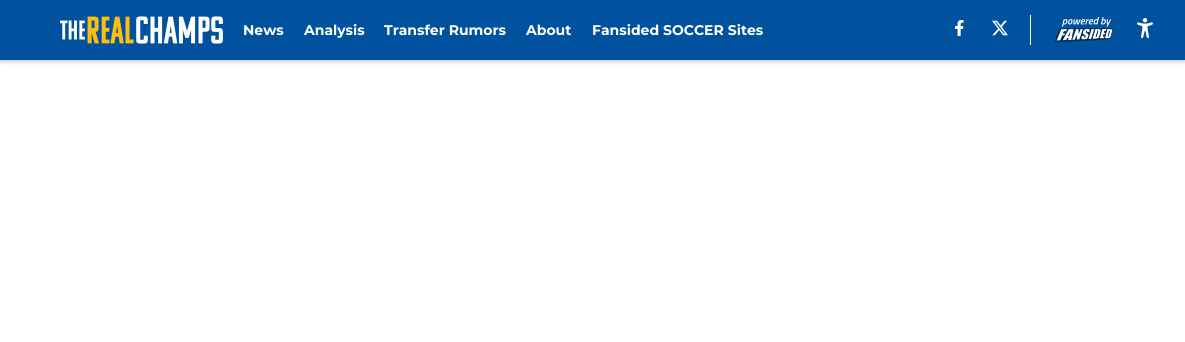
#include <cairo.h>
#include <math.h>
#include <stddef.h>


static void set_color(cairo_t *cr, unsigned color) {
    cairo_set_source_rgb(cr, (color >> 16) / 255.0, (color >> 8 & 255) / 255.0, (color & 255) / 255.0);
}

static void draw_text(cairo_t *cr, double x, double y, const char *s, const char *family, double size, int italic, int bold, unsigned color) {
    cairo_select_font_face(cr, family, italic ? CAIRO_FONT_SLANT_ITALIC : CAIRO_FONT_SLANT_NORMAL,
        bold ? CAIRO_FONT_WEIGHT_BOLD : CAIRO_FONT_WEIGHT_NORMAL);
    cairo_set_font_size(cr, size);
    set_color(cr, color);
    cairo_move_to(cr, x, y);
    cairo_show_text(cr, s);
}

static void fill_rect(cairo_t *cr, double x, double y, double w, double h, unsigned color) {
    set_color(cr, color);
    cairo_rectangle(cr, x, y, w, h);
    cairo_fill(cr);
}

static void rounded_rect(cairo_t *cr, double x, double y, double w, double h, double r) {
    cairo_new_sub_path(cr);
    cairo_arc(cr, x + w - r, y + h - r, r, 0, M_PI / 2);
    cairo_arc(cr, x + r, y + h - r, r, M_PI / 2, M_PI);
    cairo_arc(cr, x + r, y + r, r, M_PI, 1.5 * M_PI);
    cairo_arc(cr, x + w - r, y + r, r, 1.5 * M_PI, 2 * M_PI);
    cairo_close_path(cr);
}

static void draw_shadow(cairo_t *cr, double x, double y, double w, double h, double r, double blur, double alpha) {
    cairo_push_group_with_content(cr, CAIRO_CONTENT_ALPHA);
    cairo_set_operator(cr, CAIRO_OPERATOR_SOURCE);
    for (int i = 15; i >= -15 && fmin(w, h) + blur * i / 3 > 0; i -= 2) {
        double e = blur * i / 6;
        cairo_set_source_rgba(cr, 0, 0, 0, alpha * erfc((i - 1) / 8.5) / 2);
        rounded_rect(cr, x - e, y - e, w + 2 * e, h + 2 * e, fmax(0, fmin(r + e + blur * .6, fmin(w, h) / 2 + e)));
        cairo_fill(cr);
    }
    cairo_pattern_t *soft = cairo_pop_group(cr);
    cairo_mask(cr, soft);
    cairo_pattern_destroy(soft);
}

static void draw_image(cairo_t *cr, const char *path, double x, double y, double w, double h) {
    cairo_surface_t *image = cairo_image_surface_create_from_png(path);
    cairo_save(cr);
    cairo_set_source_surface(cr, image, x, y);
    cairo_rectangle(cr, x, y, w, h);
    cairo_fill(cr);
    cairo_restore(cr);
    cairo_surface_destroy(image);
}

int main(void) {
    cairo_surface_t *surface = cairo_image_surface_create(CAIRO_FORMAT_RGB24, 1185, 342);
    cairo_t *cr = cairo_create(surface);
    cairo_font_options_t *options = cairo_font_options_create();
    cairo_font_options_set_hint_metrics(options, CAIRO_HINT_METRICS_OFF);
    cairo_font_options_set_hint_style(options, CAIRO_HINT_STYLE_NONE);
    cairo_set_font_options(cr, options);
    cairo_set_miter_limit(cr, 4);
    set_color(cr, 0xFFFFFF);
    cairo_paint(cr);
    set_color(cr, 0x000000);
    draw_shadow(cr, 0, 2, 1185, 60, 0, 2, 0.2);
    fill_rect(cr, 0, 0, 1185, 60, 0x00529F);
    draw_image(cr, "assets/img1.png", 60, 16, 163, 28);
    draw_text(cr, 243, 35, "News", "Montserrat Thin", 14, 0, 0, 0xFFFFFF);
    draw_text(cr, 304, 35, "Analysis", "Montserrat Thin", 14, 0, 0, 0xFFFFFF);
    draw_text(cr, 384, 35, "Transfer Rumors", "Montserrat Thin", 14, 0, 0, 0xFFFFFF);
    draw_text(cr, 526, 35, "About", "Montserrat Thin", 14, 0, 0, 0xFFFFFF);
    draw_text(cr, 592, 35, "Fansided SOCCER Sites", "Montserrat Thin", 14, 0, 0, 0xFFFFFF);
    draw_image(cr, "assets/img2.png", 955, 20, 9, 16);
    draw_image(cr, "assets/img3.png", 992, 20, 16, 16);
    fill_rect(cr, 1030, 15, 1, 30, 0xFFFFFF);
    draw_image(cr, "assets/img4.png", 1054, 17, 59, 26);
    draw_image(cr, "assets/img5.png", 1137, 18, 16, 20);
    cairo_surface_write_to_png(surface, "output.png");
    cairo_font_options_destroy(options);
    cairo_destroy(cr);
    cairo_surface_destroy(surface);
    return 0;
}
